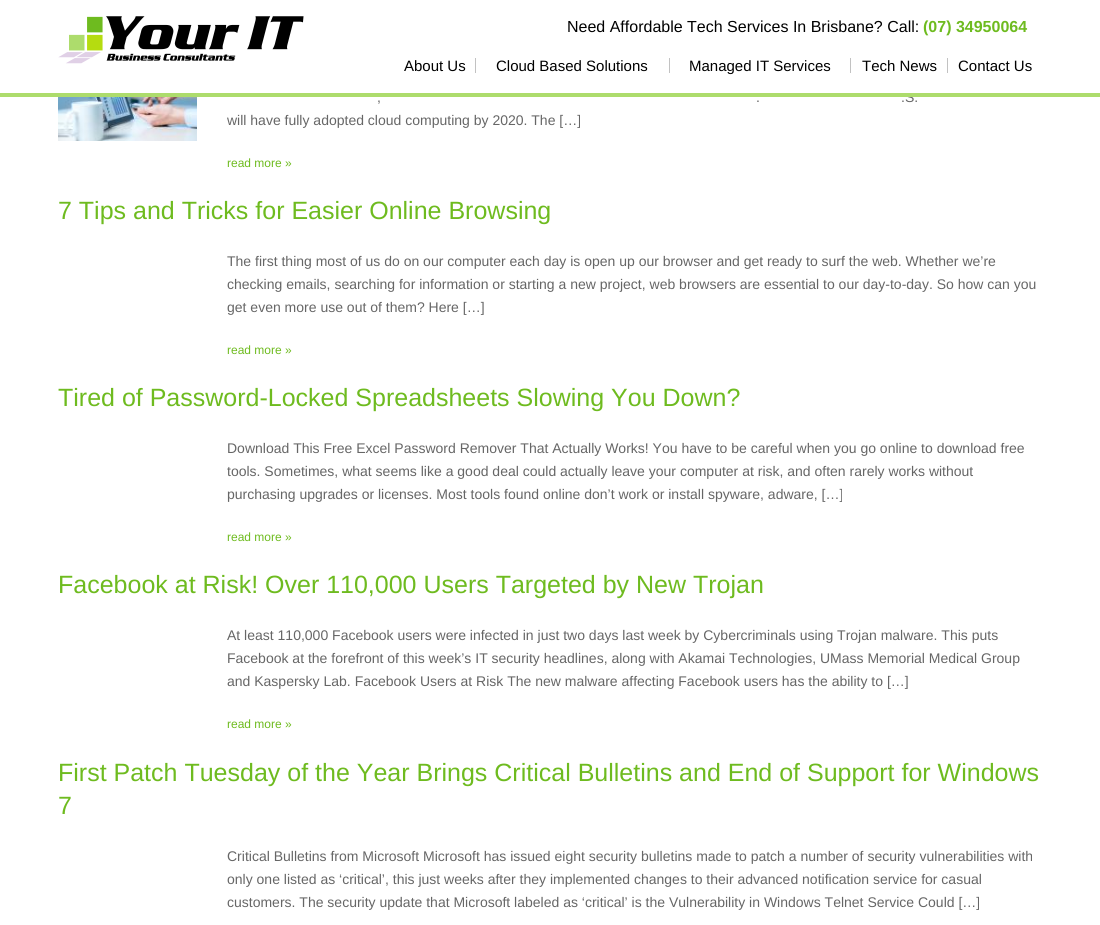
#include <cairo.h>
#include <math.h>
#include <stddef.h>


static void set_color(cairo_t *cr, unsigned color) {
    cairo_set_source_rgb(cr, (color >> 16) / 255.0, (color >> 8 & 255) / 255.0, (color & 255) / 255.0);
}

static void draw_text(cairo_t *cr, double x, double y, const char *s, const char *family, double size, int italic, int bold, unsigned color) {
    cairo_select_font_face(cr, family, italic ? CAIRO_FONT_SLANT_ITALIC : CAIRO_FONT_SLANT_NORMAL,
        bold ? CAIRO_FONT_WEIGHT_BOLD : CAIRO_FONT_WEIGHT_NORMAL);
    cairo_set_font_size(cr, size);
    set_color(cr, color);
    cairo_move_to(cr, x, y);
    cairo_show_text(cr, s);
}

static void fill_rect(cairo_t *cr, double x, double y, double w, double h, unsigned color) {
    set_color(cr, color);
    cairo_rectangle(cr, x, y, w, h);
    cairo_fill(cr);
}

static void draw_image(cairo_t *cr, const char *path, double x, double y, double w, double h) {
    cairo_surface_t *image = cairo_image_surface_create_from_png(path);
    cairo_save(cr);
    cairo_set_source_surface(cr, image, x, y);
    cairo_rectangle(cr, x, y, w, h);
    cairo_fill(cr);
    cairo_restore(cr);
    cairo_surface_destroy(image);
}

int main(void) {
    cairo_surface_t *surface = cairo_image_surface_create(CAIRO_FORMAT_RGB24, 1100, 925);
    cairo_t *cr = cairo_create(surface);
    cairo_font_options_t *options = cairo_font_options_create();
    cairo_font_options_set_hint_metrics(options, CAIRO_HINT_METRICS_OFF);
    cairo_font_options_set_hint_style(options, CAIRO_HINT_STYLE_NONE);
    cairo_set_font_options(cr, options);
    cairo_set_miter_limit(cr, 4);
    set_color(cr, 0xFFFFFF);
    cairo_paint(cr);
    draw_text(cr, 901, 102, ".S.", "Liberation Sans", 14, 0, 0, 0x666666);
    fill_rect(cr, 907, 92, 6, 1, 0xFFFFFF);
    fill_rect(cr, 0, 93, 1100, 4, 0xADDC6C);
    draw_image(cr, "assets/img1.png", 58, 16, 246, 48);
    draw_text(cr, 567, 32, "Need Affordable Tech Services In Brisbane? Call:", "Liberation Sans", 16, 0, 0, 0x000000);
    draw_text(cr, 923, 32, "(07) 34950064", "Liberation Sans", 16, 0, 1, 0x6EBB1F);
    fill_rect(cr, 475, 58, 1, 15, 0xC2C2C2);
    draw_text(cr, 404, 71, "About Us", "Liberation Sans", 15, 0, 0, 0x000000);
    fill_rect(cr, 669, 58, 1, 15, 0xC2C2C2);
    draw_text(cr, 496, 71, "Cloud Based Solutions", "Liberation Sans", 15, 0, 0, 0x000000);
    fill_rect(cr, 850, 58, 1, 15, 0xC2C2C2);
    draw_text(cr, 689, 71, "Managed IT Services", "Liberation Sans", 15, 0, 0, 0x000000);
    fill_rect(cr, 947, 58, 1, 15, 0xC2C2C2);
    draw_text(cr, 862, 71, "Tech News", "Liberation Sans", 15, 0, 0, 0x000000);
    draw_text(cr, 958, 71, "Contact Us", "Liberation Sans", 15, 0, 0, 0x000000);
    draw_image(cr, "assets/img2.png", 58, 97, 139, 44);
    draw_text(cr, 377, 102, ",", "Liberation Sans", 14, 0, 0, 0x666666);
    draw_text(cr, 756, 102, ".", "Liberation Sans", 14, 0, 0, 0x666666);
    draw_text(cr, 227, 125, "will have fully adopted cloud computing by 2020. The […]", "Liberation Sans", 14, 0, 0, 0x666666);
    draw_text(cr, 227, 167, "read more »", "Liberation Sans", 12, 0, 0, 0x6EBB1F);
    draw_text(cr, 58, 219, "7 Tips and Tricks for Easier Online Browsing", "Liberation Sans", 25, 0, 0, 0x6EBB1F);
    draw_text(cr, 227, 266, "The first thing most of us do on our computer each day is open up our browser and get ready to surf the web. Whether we’re", "Liberation Sans", 14, 0, 0, 0x666666);
    draw_text(cr, 227, 289, "checking emails, searching for information or starting a new project, web browsers are essential to our day-to-day. So how can you", "Liberation Sans", 14, 0, 0, 0x666666);
    draw_text(cr, 227, 312, "get even more use out of them? Here […]", "Liberation Sans", 14, 0, 0, 0x666666);
    draw_text(cr, 227, 354, "read more »", "Liberation Sans", 12, 0, 0, 0x6EBB1F);
    draw_text(cr, 58, 406, "Tired of Password-Locked Spreadsheets Slowing You Down?", "Liberation Sans", 25, 0, 0, 0x6EBB1F);
    draw_text(cr, 227, 453, "Download This Free Excel Password Remover That Actually Works! You have to be careful when you go online to download free", "Liberation Sans", 14, 0, 0, 0x666666);
    draw_text(cr, 227, 476, "tools. Sometimes, what seems like a good deal could actually leave your computer at risk, and often rarely works without", "Liberation Sans", 14, 0, 0, 0x666666);
    draw_text(cr, 227, 499, "purchasing upgrades or licenses. Most tools found online don’t work or install spyware, adware, […]", "Liberation Sans", 14, 0, 0, 0x666666);
    draw_text(cr, 227, 541, "read more »", "Liberation Sans", 12, 0, 0, 0x6EBB1F);
    draw_text(cr, 58, 593, "Facebook at Risk! Over 110,000 Users Targeted by New Trojan", "Liberation Sans", 25, 0, 0, 0x6EBB1F);
    draw_text(cr, 227, 640, "At least 110,000 Facebook users were infected in just two days last week by Cybercriminals using Trojan malware. This puts", "Liberation Sans", 14, 0, 0, 0x666666);
    draw_text(cr, 227, 663, "Facebook at the forefront of this week’s IT security headlines, along with Akamai Technologies, UMass Memorial Medical Group", "Liberation Sans", 14, 0, 0, 0x666666);
    draw_text(cr, 227, 686, "and Kaspersky Lab. Facebook Users at Risk The new malware affecting Facebook users has the ability to […]", "Liberation Sans", 14, 0, 0, 0x666666);
    draw_text(cr, 227, 728, "read more »", "Liberation Sans", 12, 0, 0, 0x6EBB1F);
    draw_text(cr, 58, 781, "First Patch Tuesday of the Year Brings Critical Bulletins and End of Support for Windows", "Liberation Sans", 25, 0, 0, 0x6EBB1F);
    draw_text(cr, 58, 814, "7", "Liberation Sans", 25, 0, 0, 0x6EBB1F);
    draw_text(cr, 227, 861, "Critical Bulletins from Microsoft Microsoft has issued eight security bulletins made to patch a number of security vulnerabilities with", "Liberation Sans", 14, 0, 0, 0x666666);
    draw_text(cr, 227, 884, "only one listed as ‘critical’, this just weeks after they implemented changes to their advanced notification service for casual", "Liberation Sans", 14, 0, 0, 0x666666);
    draw_text(cr, 227, 907, "customers. The security update that Microsoft labeled as ‘critical’ is the Vulnerability in Windows Telnet Service Could […]", "Liberation Sans", 14, 0, 0, 0x666666);
    cairo_surface_write_to_png(surface, "output.png");
    cairo_font_options_destroy(options);
    cairo_destroy(cr);
    cairo_surface_destroy(surface);
    return 0;
}
